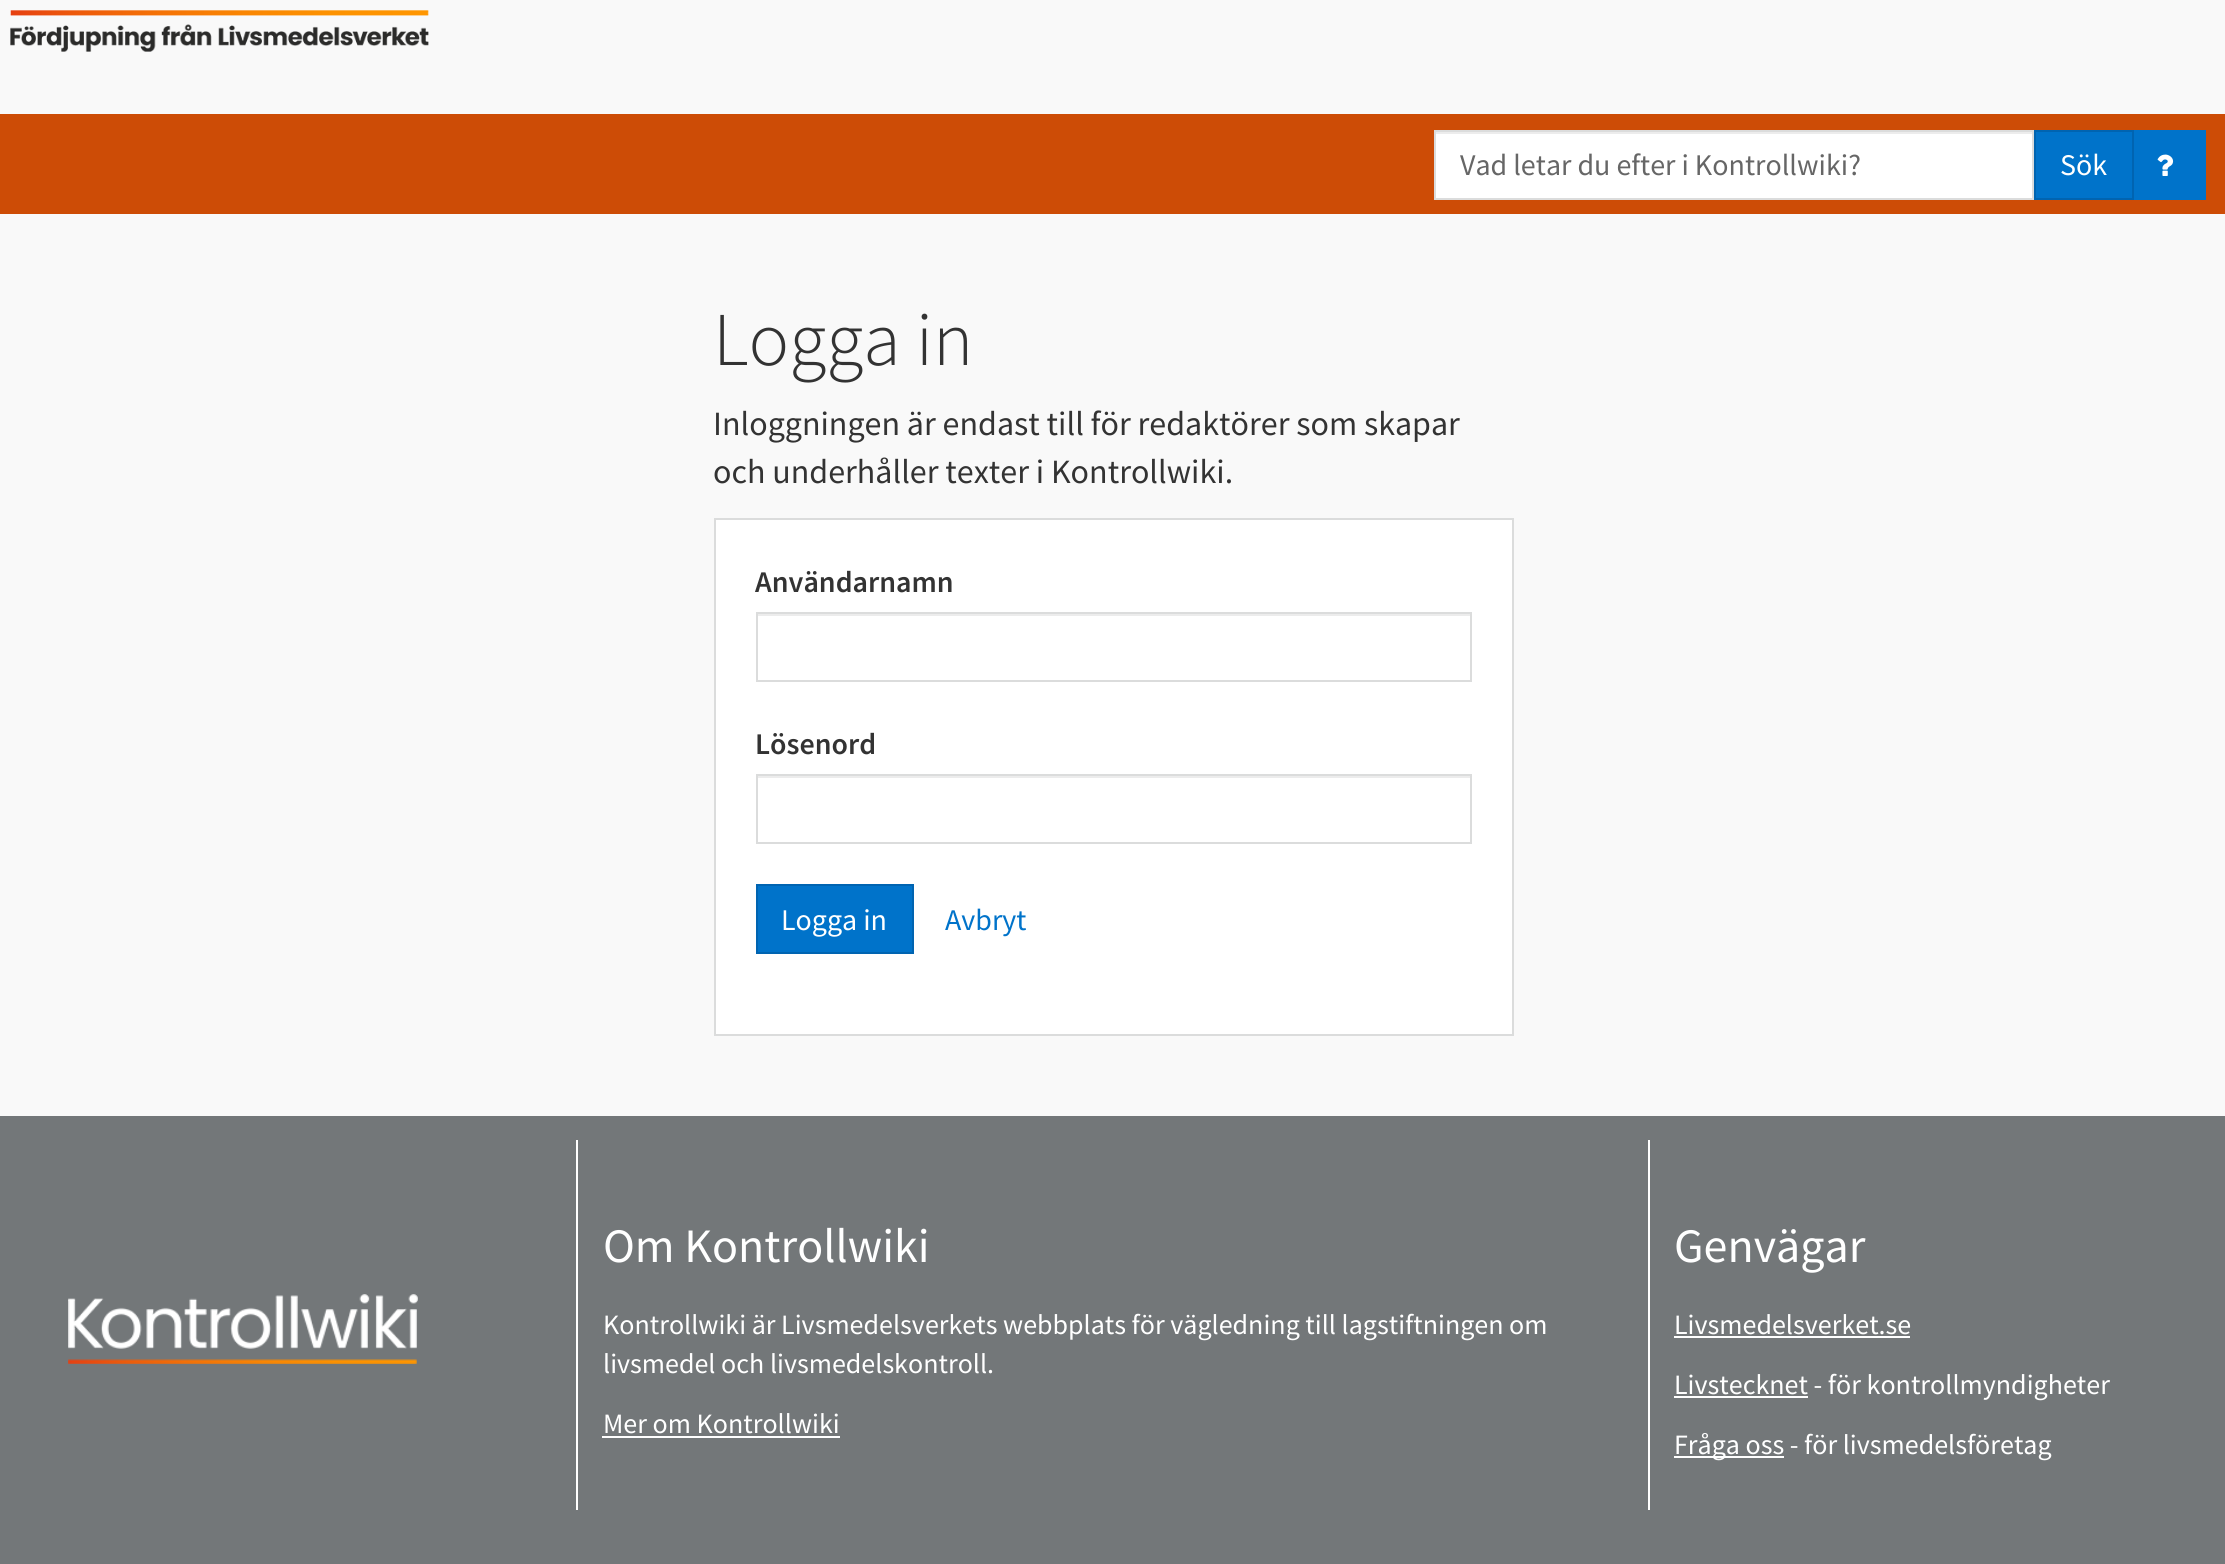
#include <cairo.h>
#include <math.h>
#include <stddef.h>


static void set_color(cairo_t *cr, unsigned color) {
    cairo_set_source_rgb(cr, (color >> 16) / 255.0, (color >> 8 & 255) / 255.0, (color & 255) / 255.0);
}

static void draw_text(cairo_t *cr, double x, double y, const char *s, const char *family, double size, int italic, int bold, unsigned color) {
    cairo_select_font_face(cr, family, italic ? CAIRO_FONT_SLANT_ITALIC : CAIRO_FONT_SLANT_NORMAL,
        bold ? CAIRO_FONT_WEIGHT_BOLD : CAIRO_FONT_WEIGHT_NORMAL);
    cairo_set_font_size(cr, size);
    set_color(cr, color);
    cairo_move_to(cr, x, y);
    cairo_show_text(cr, s);
}

static void fill_rect(cairo_t *cr, double x, double y, double w, double h, unsigned color) {
    set_color(cr, color);
    cairo_rectangle(cr, x, y, w, h);
    cairo_fill(cr);
}

static void draw_image(cairo_t *cr, const char *path, double x, double y, double w, double h) {
    cairo_surface_t *image = cairo_image_surface_create_from_png(path);
    cairo_save(cr);
    cairo_set_source_surface(cr, image, x, y);
    cairo_rectangle(cr, x, y, w, h);
    cairo_fill(cr);
    cairo_restore(cr);
    cairo_surface_destroy(image);
}

int main(void) {
    cairo_surface_t *surface = cairo_image_surface_create(CAIRO_FORMAT_RGB24, 2225, 1564);
    cairo_t *cr = cairo_create(surface);
    cairo_font_options_t *options = cairo_font_options_create();
    cairo_font_options_set_hint_metrics(options, CAIRO_HINT_METRICS_OFF);
    cairo_font_options_set_hint_style(options, CAIRO_HINT_STYLE_NONE);
    cairo_set_font_options(cr, options);
    cairo_set_miter_limit(cr, 4);
    set_color(cr, 0xF9F9F9);
    cairo_paint(cr);
    draw_image(cr, "assets/img1.png", 10, 10, 419, 42);
    fill_rect(cr, 0, 114, 2225, 100, 0xCD4C06);
    fill_rect(cr, 1436, 134, 596, 64, 0xFFFFFF);
    fill_rect(cr, 1436, 132, 596, 2, 0xECECEC);
    cairo_rectangle(cr, 1435, 131, 598, 68);
    set_color(cr, 0xDBDCDC);
    cairo_stroke(cr);
    draw_text(cr, 1460, 175, "Vad letar du efter i Kontrollwiki?", "Source Sans Pro", 30, 0, 0, 0x666666);
    set_color(cr, 0x0073CA);
    cairo_rectangle(cr, 2035, 131, 98, 68);
    cairo_fill_preserve(cr);
    set_color(cr, 0x0064B1);
    cairo_stroke(cr);
    draw_text(cr, 2060, 175, "Sök", "Source Sans Pro", 30, 0, 0, 0xFFFFFF);
    fill_rect(cr, 2134, 130, 72, 70, 0x0073CA);
    draw_image(cr, "assets/img2.png", 2157, 154, 17, 22);
    draw_text(cr, 713, 365, "Logga in", "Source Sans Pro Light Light", 76, 0, 0, 0x333333);
    draw_text(cr, 713, 435, "Inloggningen är endast till för redaktörer som skapar", "Source Sans Pro", 34, 0, 0, 0x333333);
    draw_text(cr, 713, 483, "och underhåller texter i Kontrollwiki.", "Source Sans Pro", 34, 0, 0, 0x333333);
    set_color(cr, 0xFFFFFF);
    cairo_rectangle(cr, 715, 519, 798, 516);
    cairo_fill_preserve(cr);
    set_color(cr, 0xDBDCDC);
    cairo_stroke(cr);
    draw_text(cr, 755, 592, "Användarnamn", "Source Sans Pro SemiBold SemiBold", 30, 0, 0, 0x333333);
    fill_rect(cr, 758, 614, 712, 2, 0xECECEC);
    cairo_rectangle(cr, 757, 613, 714, 68);
    set_color(cr, 0xDBDCDC);
    cairo_stroke(cr);
    draw_text(cr, 755, 754, "Lösenord", "Source Sans Pro SemiBold SemiBold", 30, 0, 0, 0x333333);
    fill_rect(cr, 758, 776, 712, 2, 0xECECEC);
    cairo_rectangle(cr, 757, 775, 714, 68);
    set_color(cr, 0xDBDCDC);
    cairo_stroke(cr);
    set_color(cr, 0x0073CA);
    cairo_rectangle(cr, 757, 885, 156, 68);
    cairo_fill_preserve(cr);
    set_color(cr, 0x0064B1);
    cairo_stroke(cr);
    draw_text(cr, 781, 930, "Logga in", "Source Sans Pro", 30, 0, 0, 0xFFFFFF);
    draw_text(cr, 945, 930, "Avbryt", "Source Sans Pro", 30, 0, 0, 0x0073CA);
    fill_rect(cr, 0, 1116, 2225, 448, 0x737779);
    fill_rect(cr, 576, 1140, 2, 370, 0xFFFFFF);
    draw_image(cr, "assets/img3.png", 68, 1294, 350, 70);
    draw_text(cr, 603, 1262, "Om Kontrollwiki", "Source Sans Pro", 48, 0, 0, 0xFFFFFF);
    draw_text(cr, 603, 1334, "Kontrollwiki är Livsmedelsverkets webbplats för vägledning till lagstiftningen om", "Source Sans Pro", 28, 0, 0, 0xFFFFFF);
    draw_text(cr, 603, 1373, "livsmedel och livsmedelskontroll.", "Source Sans Pro", 28, 0, 0, 0xFFFFFF);
    draw_text(cr, 603, 1433, "Mer om Kontrollwiki", "Source Sans Pro", 28, 0, 0, 0xFFFFFF);
    fill_rect(cr, 602, 1436, 238, 2, 0xFFFFFF);
    fill_rect(cr, 1648, 1140, 2, 370, 0xFFFFFF);
    draw_text(cr, 1674, 1262, "Genvägar", "Source Sans Pro", 48, 0, 0, 0xFFFFFF);
    draw_text(cr, 1674, 1334, "Livsmedelsverket.se", "Source Sans Pro", 28, 0, 0, 0xFFFFFF);
    fill_rect(cr, 1674, 1336, 236, 2, 0xFFFFFF);
    fill_rect(cr, 1674, 1396, 134, 2, 0xFFFFFF);
    draw_text(cr, 1674, 1394, "Livstecknet - för kontrollmyndigheter", "Source Sans Pro", 28, 0, 0, 0xFFFFFF);
    fill_rect(cr, 1674, 1456, 110, 2, 0xFFFFFF);
    draw_text(cr, 1674, 1454, "Fråga oss - för livsmedelsföretag", "Source Sans Pro", 28, 0, 0, 0xFFFFFF);
    cairo_surface_write_to_png(surface, "output.png");
    cairo_font_options_destroy(options);
    cairo_destroy(cr);
    cairo_surface_destroy(surface);
    return 0;
}
